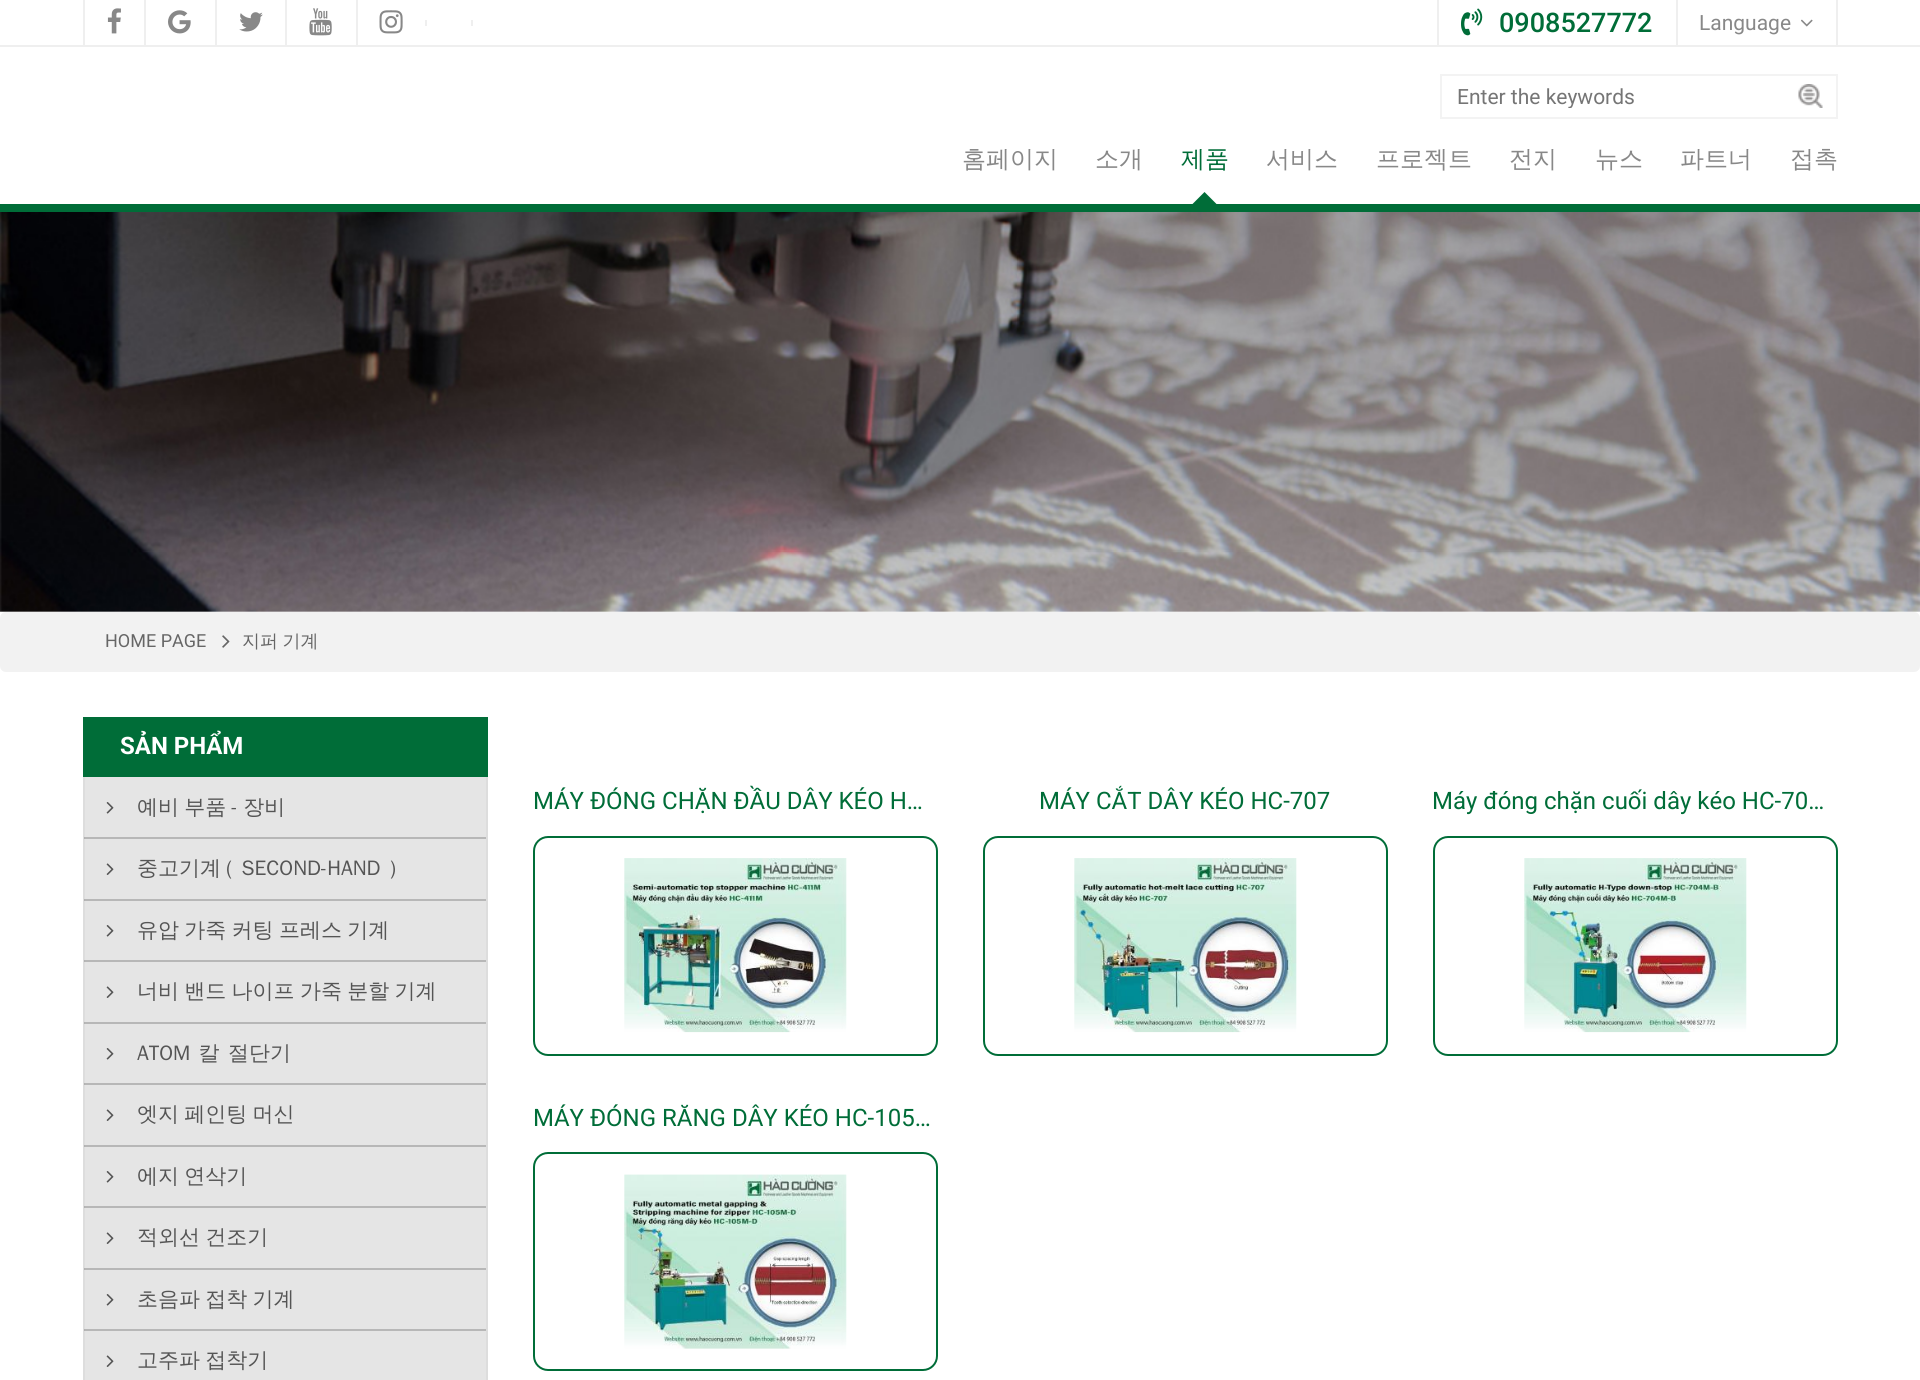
#include <cairo.h>
#include <math.h>
#include <stddef.h>


static void set_color(cairo_t *cr, unsigned color) {
    cairo_set_source_rgb(cr, (color >> 16) / 255.0, (color >> 8 & 255) / 255.0, (color & 255) / 255.0);
}

static void draw_text(cairo_t *cr, double x, double y, const char *s, const char *family, double size, int italic, int bold, unsigned color) {
    cairo_select_font_face(cr, family, italic ? CAIRO_FONT_SLANT_ITALIC : CAIRO_FONT_SLANT_NORMAL,
        bold ? CAIRO_FONT_WEIGHT_BOLD : CAIRO_FONT_WEIGHT_NORMAL);
    cairo_set_font_size(cr, size);
    set_color(cr, color);
    cairo_move_to(cr, x, y);
    cairo_show_text(cr, s);
}

static void draw_spaced(cairo_t *cr, double x, double y, const char *s, double letter, double word) {
    cairo_move_to(cr, x, y);
    while (*s) {
        char ch[5] = {0};
        int n = 0;
        do ch[n++] = *s++; while ((*s & 0xC0) == 0x80);
        cairo_show_text(cr, ch);
        cairo_rel_move_to(cr, letter + word * (*ch == ' '), 0);
    }
}

static void fill_rect(cairo_t *cr, double x, double y, double w, double h, unsigned color) {
    set_color(cr, color);
    cairo_rectangle(cr, x, y, w, h);
    cairo_fill(cr);
}

static void rounded_rect(cairo_t *cr, double x, double y, double w, double h, double r) {
    cairo_new_sub_path(cr);
    cairo_arc(cr, x + w - r, y + h - r, r, 0, M_PI / 2);
    cairo_arc(cr, x + r, y + h - r, r, M_PI / 2, M_PI);
    cairo_arc(cr, x + r, y + r, r, M_PI, 1.5 * M_PI);
    cairo_arc(cr, x + w - r, y + r, r, 1.5 * M_PI, 2 * M_PI);
    cairo_close_path(cr);
}

static void draw_image(cairo_t *cr, const char *path, double x, double y, double w, double h) {
    cairo_surface_t *image = cairo_image_surface_create_from_png(path);
    cairo_save(cr);
    cairo_set_source_surface(cr, image, x, y);
    cairo_rectangle(cr, x, y, w, h);
    cairo_fill(cr);
    cairo_restore(cr);
    cairo_surface_destroy(image);
}

int main(void) {
    cairo_surface_t *surface = cairo_image_surface_create(CAIRO_FORMAT_RGB24, 1920, 1380);
    cairo_t *cr = cairo_create(surface);
    cairo_font_options_t *options = cairo_font_options_create();
    cairo_font_options_set_hint_metrics(options, CAIRO_HINT_METRICS_OFF);
    cairo_font_options_set_hint_style(options, CAIRO_HINT_STYLE_NONE);
    cairo_set_font_options(cr, options);
    cairo_set_miter_limit(cr, 4);
    set_color(cr, 0xFFFFFF);
    cairo_paint(cr);
    fill_rect(cr, 0, 45, 1920, 2, 0xEFEFEF);
    fill_rect(cr, 83, 0, 2, 45, 0xEFEFEF);
    draw_image(cr, "assets/img1.png", 107, 8, 14, 26);
    fill_rect(cr, 144, 0, 2, 45, 0xEFEFEF);
    draw_image(cr, "assets/img2.png", 168, 10, 23, 24);
    fill_rect(cr, 215, 0, 2, 45, 0xEFEFEF);
    draw_image(cr, "assets/img3.png", 239, 12, 24, 20);
    fill_rect(cr, 285, 0, 2, 45, 0xEFEFEF);
    draw_image(cr, "assets/img4.png", 309, 8, 23, 28);
    fill_rect(cr, 356, 0, 2, 45, 0xEFEFEF);
    draw_image(cr, "assets/img5.png", 379, 10, 24, 24);
    fill_rect(cr, 471, 20, 2, 6, 0xEFEFEF);
    fill_rect(cr, 425, 20, 2, 6, 0xEFEFEF);
    fill_rect(cr, 1437, 0, 2, 45, 0xEFEFEF);
    draw_image(cr, "assets/img6.png", 1461, 8, 22, 28);
    draw_text(cr, 1499, 32, "0908527772", "Roboto Medium", 27, 0, 0, 0x006D38);
    fill_rect(cr, 1836, 0, 2, 45, 0xEFEFEF);
    fill_rect(cr, 1676, 0, 2, 45, 0xEFEFEF);
    draw_text(cr, 1699, 30, "Language", "Roboto", 21, 0, 0, 0x888888);
    draw_image(cr, "assets/img7.png", 1801, 19, 12, 8);
    fill_rect(cr, 0, 204, 1920, 8, 0x006D38);
    cairo_rectangle(cr, 1441, 75, 396, 43);
    set_color(cr, 0xF3F3F3);
    cairo_stroke(cr);
    cairo_save(cr);
    cairo_rectangle(cr, 1457, 84, 379, 24);
    cairo_clip(cr);
    draw_text(cr, 1457, 104, "Enter the keywords", "Roboto", 21, 0, 0, 0x757575);
    cairo_restore(cr);
    draw_image(cr, "assets/img8.png", 1798, 84, 25, 24);
    draw_text(cr, 962, 167, "홈페이지", "WenQuanYi Zen Hei Medium", 24, 0, 0, 0x888888);
    draw_text(cr, 1095, 167, "소개", "WenQuanYi Zen Hei Medium", 24, 0, 0, 0x888888);
    draw_text(cr, 1181, 167, "제품", "WenQuanYi Zen Hei Medium", 24, 0, 0, 0x006D38);
    cairo_new_path(cr);
    cairo_move_to(cr, 1219.5, 207);
    cairo_line_to(cr, 1189.5, 207);
    cairo_line_to(cr, 1204.5, 192);
    cairo_close_path(cr);
    cairo_fill(cr);
    draw_text(cr, 1266, 167, "서비스", "WenQuanYi Zen Hei Medium", 24, 0, 0, 0x888888);
    draw_text(cr, 1376, 167, "프로젝트", "WenQuanYi Zen Hei Medium", 24, 0, 0, 0x888888);
    draw_text(cr, 1509, 167, "전지", "WenQuanYi Zen Hei Medium", 24, 0, 0, 0x888888);
    draw_text(cr, 1595, 167, "뉴스", "WenQuanYi Zen Hei Medium", 24, 0, 0, 0x888888);
    draw_text(cr, 1680, 167, "파트너", "WenQuanYi Zen Hei Medium", 24, 0, 0, 0x888888);
    draw_text(cr, 1790, 167, "접촉", "WenQuanYi Zen Hei Medium", 24, 0, 0, 0x888888);
    draw_image(cr, "assets/img9.png", 0, 212, 1920, 400);
    set_color(cr, 0xF2F2F2);
    rounded_rect(cr, 0, 612, 1920, 60, 6);
    cairo_fill(cr);
    draw_text(cr, 105, 647, "HOME PAGE", "Roboto", 18, 0, 0, 0x666666);
    draw_image(cr, "assets/img10.png", 222, 635, 8, 13);
    cairo_select_font_face(cr, "WenQuanYi Zen Hei Medium", CAIRO_FONT_SLANT_NORMAL, CAIRO_FONT_WEIGHT_NORMAL);
    draw_spaced(cr, 242, 647, "지퍼 기계", 0, -1);
    fill_rect(cr, 83, 717, 405, 60, 0x006D38);
    draw_text(cr, 120, 754, "SẢN PHẨM", "Roboto", 24, 0, 1, 0xFFFFFF);
    fill_rect(cr, 85, 777, 401, 603, 0xE5E5E5);
    fill_rect(cr, 84, 1329, 402, 2, 0xB7B7B7);
    fill_rect(cr, 84, 1268, 402, 2, 0xB7B7B7);
    fill_rect(cr, 84, 1206, 402, 2, 0xB7B7B7);
    fill_rect(cr, 84, 1145, 402, 2, 0xB7B7B7);
    fill_rect(cr, 84, 1083, 402, 2, 0xB7B7B7);
    fill_rect(cr, 84, 1022, 402, 2, 0xB7B7B7);
    fill_rect(cr, 84, 960, 402, 2, 0xB7B7B7);
    fill_rect(cr, 84, 899, 402, 2, 0xB7B7B7);
    fill_rect(cr, 84, 837, 402, 2, 0xB7B7B7);
    fill_rect(cr, 486, 777, 2, 603, 0xDDDDDD);
    fill_rect(cr, 83, 777, 2, 603, 0xDDDDDD);
    fill_rect(cr, 84, 1329, 1, 2, 0xB1B1B1);
    fill_rect(cr, 84, 1268, 1, 2, 0xB1B1B1);
    fill_rect(cr, 84, 1206, 1, 2, 0xB1B1B1);
    fill_rect(cr, 84, 1145, 1, 2, 0xB1B1B1);
    fill_rect(cr, 84, 1083, 1, 2, 0xB1B1B1);
    fill_rect(cr, 84, 1022, 1, 2, 0xB1B1B1);
    fill_rect(cr, 84, 960, 1, 2, 0xB1B1B1);
    fill_rect(cr, 84, 899, 1, 2, 0xB1B1B1);
    fill_rect(cr, 84, 837, 1, 2, 0xB1B1B1);
    draw_image(cr, "assets/img11.png", 106, 802, 8, 12);
    cairo_select_font_face(cr, "WenQuanYi Zen Hei Medium", CAIRO_FONT_SLANT_NORMAL, CAIRO_FONT_WEIGHT_NORMAL);
    cairo_set_font_size(cr, 21);
    set_color(cr, 0x555555);
    draw_spaced(cr, 137, 814, "예비 부품 - 장비", 0, -1);
    draw_image(cr, "assets/img12.png", 106, 863, 8, 12);
    draw_text(cr, 137, 875, "중고기계", "WenQuanYi Zen Hei Medium", 21, 0, 0, 0x555555);
    draw_spaced(cr, 226, 875, "( SECOND-HAND )", 0, 3);
    draw_image(cr, "assets/img11.png", 106, 925, 8, 12);
    draw_spaced(cr, 137, 937, "유압 가죽 커팅 프레스 기계", 0, -1);
    draw_image(cr, "assets/img12.png", 106, 986, 8, 12);
    draw_spaced(cr, 137, 998, "너비 밴드 나이프 가죽 분할 기계", 0, -1);
    draw_image(cr, "assets/img11.png", 106, 1048, 8, 12);
    draw_spaced(cr, 137, 1060, "ATOM 칼 절단기", 0, 2);
    draw_image(cr, "assets/img12.png", 106, 1109, 8, 12);
    draw_spaced(cr, 137, 1121, "엣지 페인팅 머신", 0, -1);
    draw_image(cr, "assets/img11.png", 106, 1171, 8, 12);
    draw_spaced(cr, 137, 1183, "에지 연삭기", 0, -1);
    draw_image(cr, "assets/img12.png", 106, 1232, 8, 12);
    draw_spaced(cr, 137, 1244, "적외선 건조기", 0, -1);
    draw_image(cr, "assets/img11.png", 106, 1294, 8, 12);
    draw_spaced(cr, 137, 1306, "초음파 접착 기계", 0, -1);
    draw_image(cr, "assets/img12.png", 106, 1355, 8, 12);
    draw_spaced(cr, 137, 1367, "고주파 접착기", 0, -1);
    draw_text(cr, 533, 809, "MÁY ĐÓNG CHẶN ĐẦU DÂY KÉO H…", "Roboto", 24, 0, 0, 0x006D38);
    rounded_rect(cr, 534, 837, 403, 218, 14);
    cairo_stroke(cr);
    draw_image(cr, "assets/img13.png", 624, 858, 223, 175);
    draw_text(cr, 1039, 809, "MÁY CẮT DÂY KÉO HC-707", "Roboto", 24, 0, 0, 0x006D38);
    rounded_rect(cr, 984, 837, 403, 218, 14);
    cairo_stroke(cr);
    draw_image(cr, "assets/img14.png", 1074, 858, 223, 175);
    draw_text(cr, 1432, 809, "Máy đóng chặn cuối dây kéo HC-70…", "Roboto", 24, 0, 0, 0x006D38);
    rounded_rect(cr, 1434, 837, 403, 218, 14);
    cairo_stroke(cr);
    draw_image(cr, "assets/img15.png", 1524, 858, 223, 175);
    draw_text(cr, 533, 1126, "MÁY ĐÓNG RĂNG DÂY KÉO HC-105…", "Roboto", 24, 0, 0, 0x006D38);
    rounded_rect(cr, 534, 1153, 403, 217, 14);
    cairo_stroke(cr);
    draw_image(cr, "assets/img16.png", 624, 1174, 223, 175);
    cairo_surface_write_to_png(surface, "output.png");
    cairo_font_options_destroy(options);
    cairo_destroy(cr);
    cairo_surface_destroy(surface);
    return 0;
}
